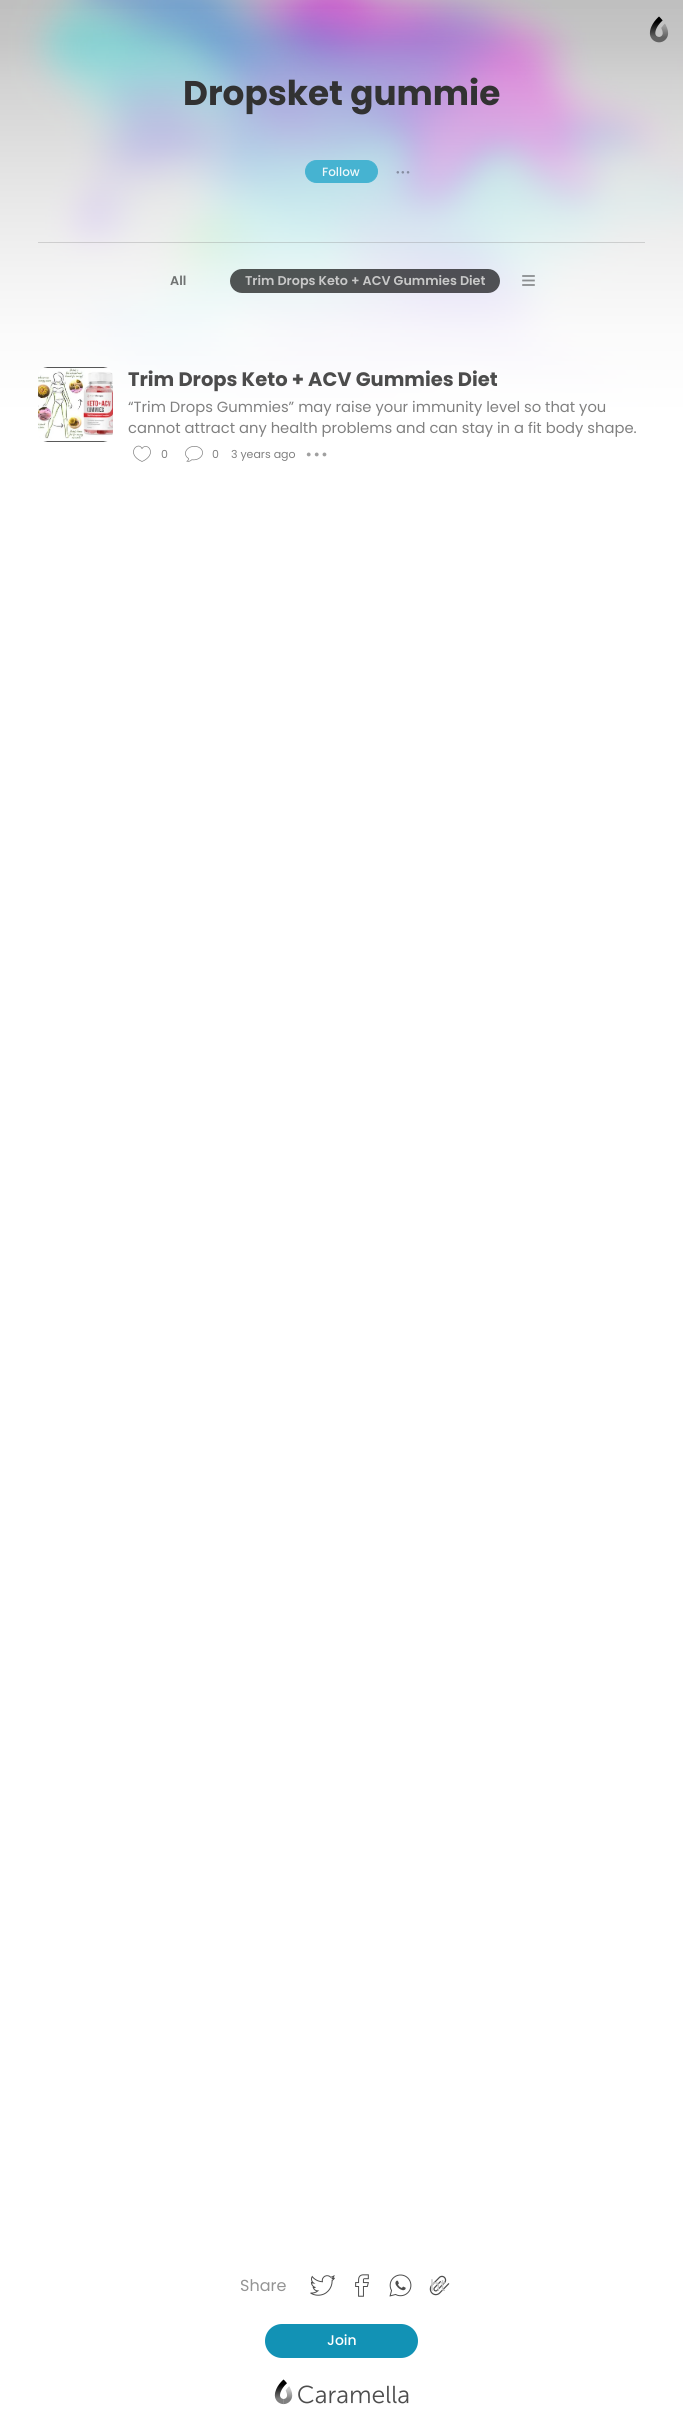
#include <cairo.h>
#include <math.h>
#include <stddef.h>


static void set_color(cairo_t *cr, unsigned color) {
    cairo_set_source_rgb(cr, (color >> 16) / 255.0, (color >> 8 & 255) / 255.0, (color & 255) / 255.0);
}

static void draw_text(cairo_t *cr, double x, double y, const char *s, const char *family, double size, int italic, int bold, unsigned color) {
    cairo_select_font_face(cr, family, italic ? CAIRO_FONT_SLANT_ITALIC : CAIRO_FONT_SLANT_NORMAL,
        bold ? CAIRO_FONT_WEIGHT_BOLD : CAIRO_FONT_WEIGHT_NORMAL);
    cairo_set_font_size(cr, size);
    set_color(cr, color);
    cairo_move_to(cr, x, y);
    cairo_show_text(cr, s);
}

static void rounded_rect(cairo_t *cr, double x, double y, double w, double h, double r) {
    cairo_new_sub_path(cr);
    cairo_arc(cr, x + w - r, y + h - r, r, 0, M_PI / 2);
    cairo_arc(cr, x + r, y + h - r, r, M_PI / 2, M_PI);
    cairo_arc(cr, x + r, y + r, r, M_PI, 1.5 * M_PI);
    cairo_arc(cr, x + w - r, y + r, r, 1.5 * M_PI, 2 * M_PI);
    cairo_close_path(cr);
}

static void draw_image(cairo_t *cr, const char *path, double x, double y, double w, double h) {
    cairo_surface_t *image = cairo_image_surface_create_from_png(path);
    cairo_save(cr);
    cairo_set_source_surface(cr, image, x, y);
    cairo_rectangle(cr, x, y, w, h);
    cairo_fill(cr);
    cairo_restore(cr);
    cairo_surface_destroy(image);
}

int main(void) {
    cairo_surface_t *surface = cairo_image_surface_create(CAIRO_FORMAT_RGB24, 683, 2431);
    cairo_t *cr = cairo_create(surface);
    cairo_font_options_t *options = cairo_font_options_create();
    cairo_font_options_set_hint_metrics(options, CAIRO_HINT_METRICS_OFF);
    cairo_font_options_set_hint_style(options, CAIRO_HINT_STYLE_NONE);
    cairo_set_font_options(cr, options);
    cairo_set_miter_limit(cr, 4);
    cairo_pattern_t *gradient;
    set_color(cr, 0xFFFFFF);
    cairo_paint(cr);
    draw_image(cr, "assets/img1.png", 0, 0, 683, 407);
    gradient = cairo_pattern_create_linear(342, 0, 342, 414);
    cairo_pattern_add_color_stop_rgba(gradient, 0, 1, 1, 1, 0);
    cairo_pattern_add_color_stop_rgba(gradient, 0.1, 1, 1, 1, 0.1);
    cairo_pattern_add_color_stop_rgba(gradient, 0.2, 1, 1, 1, 0.3);
    cairo_pattern_add_color_stop_rgba(gradient, 0.4, 1, 1, 1, 0.55);
    cairo_pattern_add_color_stop_rgba(gradient, 0.52, 1, 1, 1, 0.68);
    cairo_pattern_add_color_stop_rgba(gradient, 0.65, 1, 1, 1, 0.81);
    cairo_pattern_add_color_stop_rgba(gradient, 0.8, 1, 1, 1, 0.93);
    cairo_pattern_add_color_stop_rgba(gradient, 1, 1, 1, 1, 1);
    cairo_set_source(cr, gradient);
    cairo_pattern_destroy(gradient);
    cairo_rectangle(cr, 0, 9, 683, 398);
    cairo_fill(cr);
    draw_image(cr, "assets/img2.png", 649, 16, 20, 27);
    draw_text(cr, 183, 105, "Dropsket gummie", "Poppins", 34.25, 0, 1, 0x323232);
    set_color(cr, 0x46B3D1);
    rounded_rect(cr, 305.5, 160.5, 72, 22, 11);
    cairo_fill_preserve(cr);
    cairo_set_line_width(cr, 1);
    cairo_stroke(cr);
    draw_text(cr, 322, 176, "Follow", "Poppins Medium", 12, 0, 0, 0xEDF7FA);
    draw_text(cr, 396, 174, "● ● ●", "Liberation Serif", 6, 0, 1, 0x868DA0);
    cairo_set_source_rgba(cr, 0.502, 0.502, 0.502, 0.3);
    cairo_rectangle(cr, 38, 242, 607, 1);
    cairo_fill(cr);
    draw_text(cr, 170, 285, "All", "Poppins SemiBold", 12.75, 0, 0, 0x707372);
    cairo_set_source_rgba(cr, 0, 0, 0, 0.66);
    rounded_rect(cr, 230, 269, 270, 24, 12);
    cairo_fill(cr);
    draw_text(cr, 245, 285, "Trim Drops Keto + ACV Gummies Diet", "Poppins SemiBold", 12.75, 0, 0, 0xC8C8C8);
    draw_image(cr, "assets/img3.png", 522, 275, 13, 11);
    draw_image(cr, "assets/img4.png", 38, 367, 75, 75);
    draw_text(cr, 128, 386, "Trim Drops Keto + ACV Gummies Diet", "Poppins", 19.5, 0, 1, 0x4C4C4C);
    draw_text(cr, 128, 412, "“Trim Drops Gummies” may raise your immunity level so that you", "Poppins", 14.75, 0, 0, 0x808080);
    draw_text(cr, 128, 433, "cannot attract any health problems and can stay in a fit body shape.", "Poppins", 14.75, 0, 0, 0x808080);
    cairo_new_path(cr);
    cairo_move_to(cr, 150.5, 452);
    cairo_curve_to(cr, 150.5, 446.5, 144.5, 444.5, 142, 448.5);
    cairo_curve_to(cr, 138, 440.5, 125, 454, 142, 461.5);
    cairo_curve_to(cr, 143.5, 461, 150.5, 457.5, 150.5, 452);
    cairo_close_path(cr);
    cairo_set_line_width(cr, 0.7);
    cairo_stroke(cr);
    draw_text(cr, 161, 458, "0", "Poppins", 11, 0, 0, 0x808080);
    draw_image(cr, "assets/img5.png", 185, 446, 18, 16);
    draw_text(cr, 212, 458, "0", "Poppins", 11, 0, 0, 0x808080);
    draw_text(cr, 231, 458, "3 years ago", "Poppins", 11, 0, 0, 0x808080);
    draw_text(cr, 306, 457, "● ● ●", "Liberation Sans", 9, 0, 0, 0xA0A0A0);
    draw_text(cr, 240, 2291, "Share", "Poppins", 16, 0, 0, 0x949494);
    draw_image(cr, "assets/img6.png", 310, 2275, 25, 21);
    draw_image(cr, "assets/img7.png", 355, 2274, 14, 23);
    draw_image(cr, "assets/img8.png", 389, 2274, 23, 23);
    draw_image(cr, "assets/img9.png", 429, 2275, 21, 21);
    cairo_save(cr);
    cairo_rectangle(cr, 430, 2273, 15, 25);
    cairo_clip(cr);
    draw_text(cr, 430, 2291, "ht", "Poppins", 16, 0, 0, 0xC8C8C8);
    cairo_restore(cr);
    set_color(cr, 0x1292B5);
    rounded_rect(cr, 265, 2324, 153, 34, 17);
    cairo_fill(cr);
    draw_text(cr, 327, 2345, "Join", "Poppins Medium", 14, 0, 0, 0xFFFFFF);
    draw_image(cr, "assets/img10.png", 274, 2379, 135, 26);
    cairo_surface_write_to_png(surface, "output.png");
    cairo_font_options_destroy(options);
    cairo_destroy(cr);
    cairo_surface_destroy(surface);
    return 0;
}
